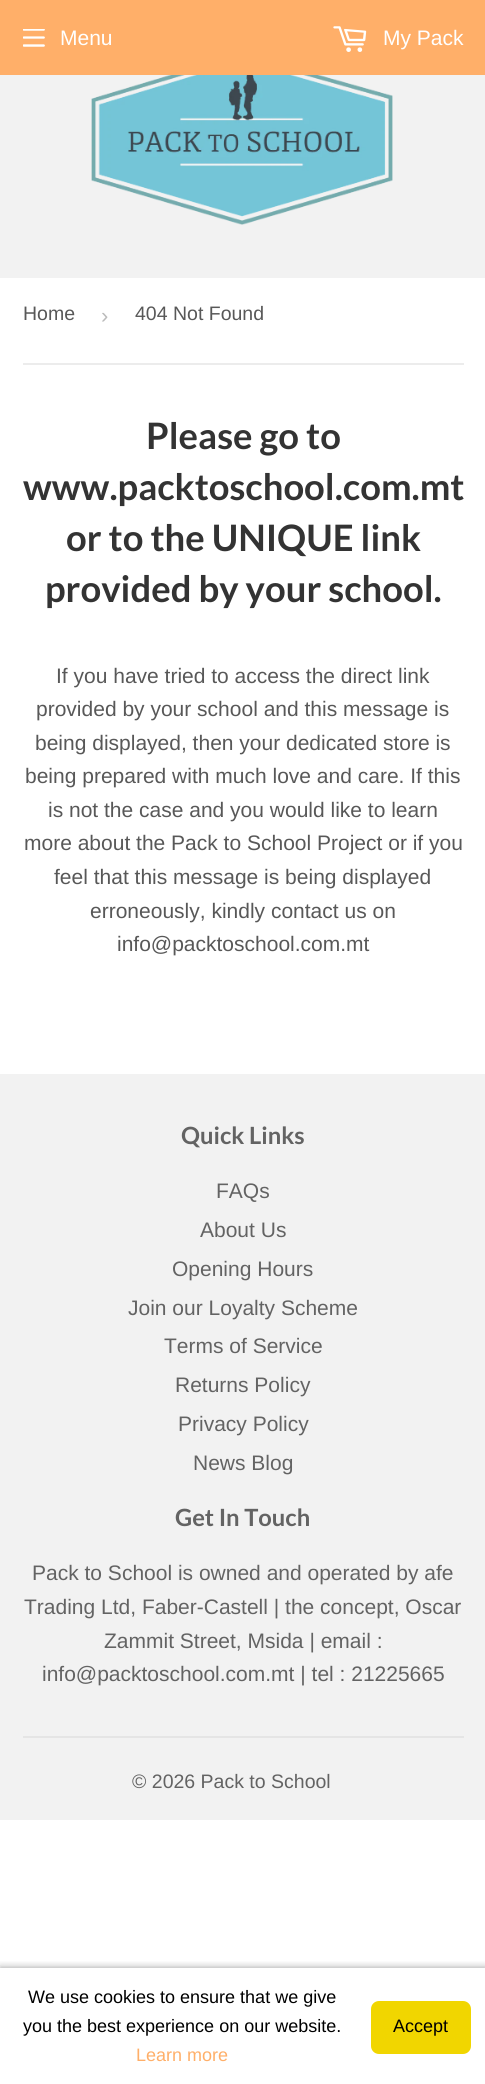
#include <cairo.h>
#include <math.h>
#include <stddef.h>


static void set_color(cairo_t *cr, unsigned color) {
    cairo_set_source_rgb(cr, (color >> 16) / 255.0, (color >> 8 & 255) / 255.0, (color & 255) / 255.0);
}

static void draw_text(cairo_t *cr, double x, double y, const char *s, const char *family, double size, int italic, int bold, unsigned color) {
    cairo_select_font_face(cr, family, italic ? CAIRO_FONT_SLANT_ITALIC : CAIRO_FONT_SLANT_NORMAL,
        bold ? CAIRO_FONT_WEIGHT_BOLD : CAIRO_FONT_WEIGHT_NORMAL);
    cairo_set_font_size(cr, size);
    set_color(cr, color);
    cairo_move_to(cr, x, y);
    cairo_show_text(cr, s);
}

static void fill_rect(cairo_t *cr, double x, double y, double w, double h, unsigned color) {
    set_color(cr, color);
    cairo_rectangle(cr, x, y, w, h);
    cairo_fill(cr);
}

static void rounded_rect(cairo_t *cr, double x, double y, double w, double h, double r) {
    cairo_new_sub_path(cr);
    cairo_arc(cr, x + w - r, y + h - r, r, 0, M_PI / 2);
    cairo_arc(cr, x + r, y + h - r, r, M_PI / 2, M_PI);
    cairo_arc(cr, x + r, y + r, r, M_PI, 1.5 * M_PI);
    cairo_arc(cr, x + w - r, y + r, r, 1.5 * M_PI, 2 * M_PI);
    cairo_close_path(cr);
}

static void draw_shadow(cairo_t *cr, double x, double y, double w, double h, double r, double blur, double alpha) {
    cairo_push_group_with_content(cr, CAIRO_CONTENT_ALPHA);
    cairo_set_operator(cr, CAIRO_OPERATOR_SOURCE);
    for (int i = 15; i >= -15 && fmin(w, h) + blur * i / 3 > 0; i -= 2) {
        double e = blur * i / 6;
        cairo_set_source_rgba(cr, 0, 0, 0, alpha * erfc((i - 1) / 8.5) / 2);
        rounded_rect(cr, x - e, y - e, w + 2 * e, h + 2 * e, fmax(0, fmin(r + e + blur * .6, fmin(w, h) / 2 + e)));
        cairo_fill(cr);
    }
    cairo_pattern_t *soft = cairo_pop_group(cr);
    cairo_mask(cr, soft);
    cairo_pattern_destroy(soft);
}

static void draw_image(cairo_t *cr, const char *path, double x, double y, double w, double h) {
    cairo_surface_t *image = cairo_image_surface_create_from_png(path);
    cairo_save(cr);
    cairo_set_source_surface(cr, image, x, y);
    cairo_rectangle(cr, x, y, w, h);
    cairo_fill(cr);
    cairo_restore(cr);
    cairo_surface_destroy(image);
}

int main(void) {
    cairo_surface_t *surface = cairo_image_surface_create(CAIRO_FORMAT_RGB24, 485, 2084);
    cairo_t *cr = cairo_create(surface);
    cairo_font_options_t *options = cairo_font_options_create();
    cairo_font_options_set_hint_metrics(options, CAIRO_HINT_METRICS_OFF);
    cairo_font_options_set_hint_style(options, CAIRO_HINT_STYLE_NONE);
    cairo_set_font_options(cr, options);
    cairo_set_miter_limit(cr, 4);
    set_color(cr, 0xFFFFFF);
    cairo_paint(cr);
    fill_rect(cr, 0, 0, 485, 75, 0xFFAF69);
    draw_image(cr, "assets/img1.png", 23, 29, 22, 18);
    draw_text(cr, 60, 45, "Menu", "Liberation Sans", 21, 0, 0, 0xFFFFFF);
    draw_image(cr, "assets/img2.png", 333, 26, 34, 26);
    draw_text(cr, 383, 45, "My Pack", "Liberation Sans", 21, 0, 0, 0xFFFFFF);
    fill_rect(cr, 0, 75, 485, 203, 0xF2F2F2);
    draw_image(cr, "assets/img3.png", 91, 75, 302, 150);
    fill_rect(cr, 23, 363, 441, 2, 0xECECEC);
    draw_text(cr, 23, 320, "Home", "Liberation Sans", 19.5, 0, 0, 0x585858);
    draw_text(cr, 101, 323, "›", "Liberation Sans", 22, 0, 0, 0xBBBBBB);
    draw_text(cr, 135, 320, "404 Not Found", "Liberation Sans", 19.5, 0, 0, 0x585858);
    draw_text(cr, 146, 449, "Please go to", "Lato", 36.4, 0, 1, 0x333333);
    draw_text(cr, 23, 500, "www.packtoschool.com.mt", "Lato", 36.4, 0, 1, 0x333333);
    draw_text(cr, 66, 551, "or to the UNIQUE link", "Lato", 36.4, 0, 1, 0x333333);
    draw_text(cr, 45, 602, "provided by your school.", "Lato", 36.4, 0, 1, 0x333333);
    draw_text(cr, 56, 683, "If you have tried to access the direct link", "Liberation Sans", 21, 0, 0, 0x585858);
    draw_text(cr, 36, 716, "provided by your school and this message is", "Liberation Sans", 21, 0, 0, 0x585858);
    draw_text(cr, 35, 750, "being displayed, then your dedicated store is", "Liberation Sans", 21, 0, 0, 0x585858);
    draw_text(cr, 25, 783, "being prepared with much love and care. If this", "Liberation Sans", 21, 0, 0, 0x585858);
    draw_text(cr, 48, 817, "is not the case and you would like to learn", "Liberation Sans", 21, 0, 0, 0x585858);
    draw_text(cr, 24, 850, "more about the Pack to School Project or if you", "Liberation Sans", 21, 0, 0, 0x585858);
    draw_text(cr, 54, 884, "feel that this message is being displayed", "Liberation Sans", 21, 0, 0, 0x585858);
    draw_text(cr, 90, 918, "erroneously, kindly contact us on", "Liberation Sans", 21, 0, 0, 0x585858);
    draw_text(cr, 117, 951, "info@packtoschool.com.mt", "Liberation Sans", 21, 0, 0, 0x585858);
    fill_rect(cr, 0, 1074, 485, 746, 0xF2F2F2);
    draw_text(cr, 181, 1144, "Quick Links", "Lato", 23.75, 0, 1, 0x636363);
    draw_text(cr, 216, 1198, "FAQs", "Liberation Sans", 21, 0, 0, 0x636363);
    draw_text(cr, 200, 1237, "About Us", "Liberation Sans", 21, 0, 0, 0x636363);
    draw_text(cr, 172, 1276, "Opening Hours", "Liberation Sans", 21, 0, 0, 0x636363);
    draw_text(cr, 128, 1315, "Join our Loyalty Scheme", "Liberation Sans", 21, 0, 0, 0x636363);
    draw_text(cr, 164, 1353, "Terms of Service", "Liberation Sans", 21, 0, 0, 0x636363);
    draw_text(cr, 175, 1392, "Returns Policy", "Liberation Sans", 21, 0, 0, 0x636363);
    draw_text(cr, 178, 1431, "Privacy Policy", "Liberation Sans", 21, 0, 0, 0x636363);
    draw_text(cr, 193, 1470, "News Blog", "Liberation Sans", 21, 0, 0, 0x636363);
    draw_text(cr, 175, 1526, "Get In Touch", "Lato", 23.75, 0, 1, 0x636363);
    draw_text(cr, 32, 1580, "Pack to School is owned and operated by afe", "Liberation Sans", 21, 0, 0, 0x636363);
    draw_text(cr, 24, 1614, "Trading Ltd, Faber-Castell | the concept, Oscar", "Liberation Sans", 21, 0, 0, 0x636363);
    draw_text(cr, 104, 1648, "Zammit Street, Msida | email :", "Liberation Sans", 21, 0, 0, 0x636363);
    draw_text(cr, 42, 1681, "info@packtoschool.com.mt | tel : 21225665", "Liberation Sans", 21, 0, 0, 0x636363);
    fill_rect(cr, 23, 1736, 441, 2, 0xE5E5E5);
    draw_text(cr, 132, 1788, "© 2026 Pack to School", "Liberation Sans", 19.5, 0, 0, 0x636363);
    cairo_save(cr);
    cairo_rectangle(cr, 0, 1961, 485, 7);
    cairo_clip(cr);
    set_color(cr, 0x000000);
    draw_shadow(cr, 0, 1968, 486, 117, 0, 4, 0.4);
    cairo_restore(cr);
    draw_text(cr, 28, 2003, "We use cookies to ensure that we give", "Liberation Sans", 18, 0, 0, 0x000000);
    draw_text(cr, 23, 2032, "you the best experience on our website.", "Liberation Sans", 18, 0, 0, 0x000000);
    draw_text(cr, 136, 2061, "Learn more", "Liberation Sans", 18, 0, 0, 0xFFAF69);
    set_color(cr, 0xF1D600);
    rounded_rect(cr, 371, 2001, 100, 53, 8);
    cairo_fill(cr);
    draw_text(cr, 393, 2032, "Accept", "Liberation Sans", 18, 0, 0, 0x000000);
    cairo_surface_write_to_png(surface, "output.png");
    cairo_font_options_destroy(options);
    cairo_destroy(cr);
    cairo_surface_destroy(surface);
    return 0;
}
